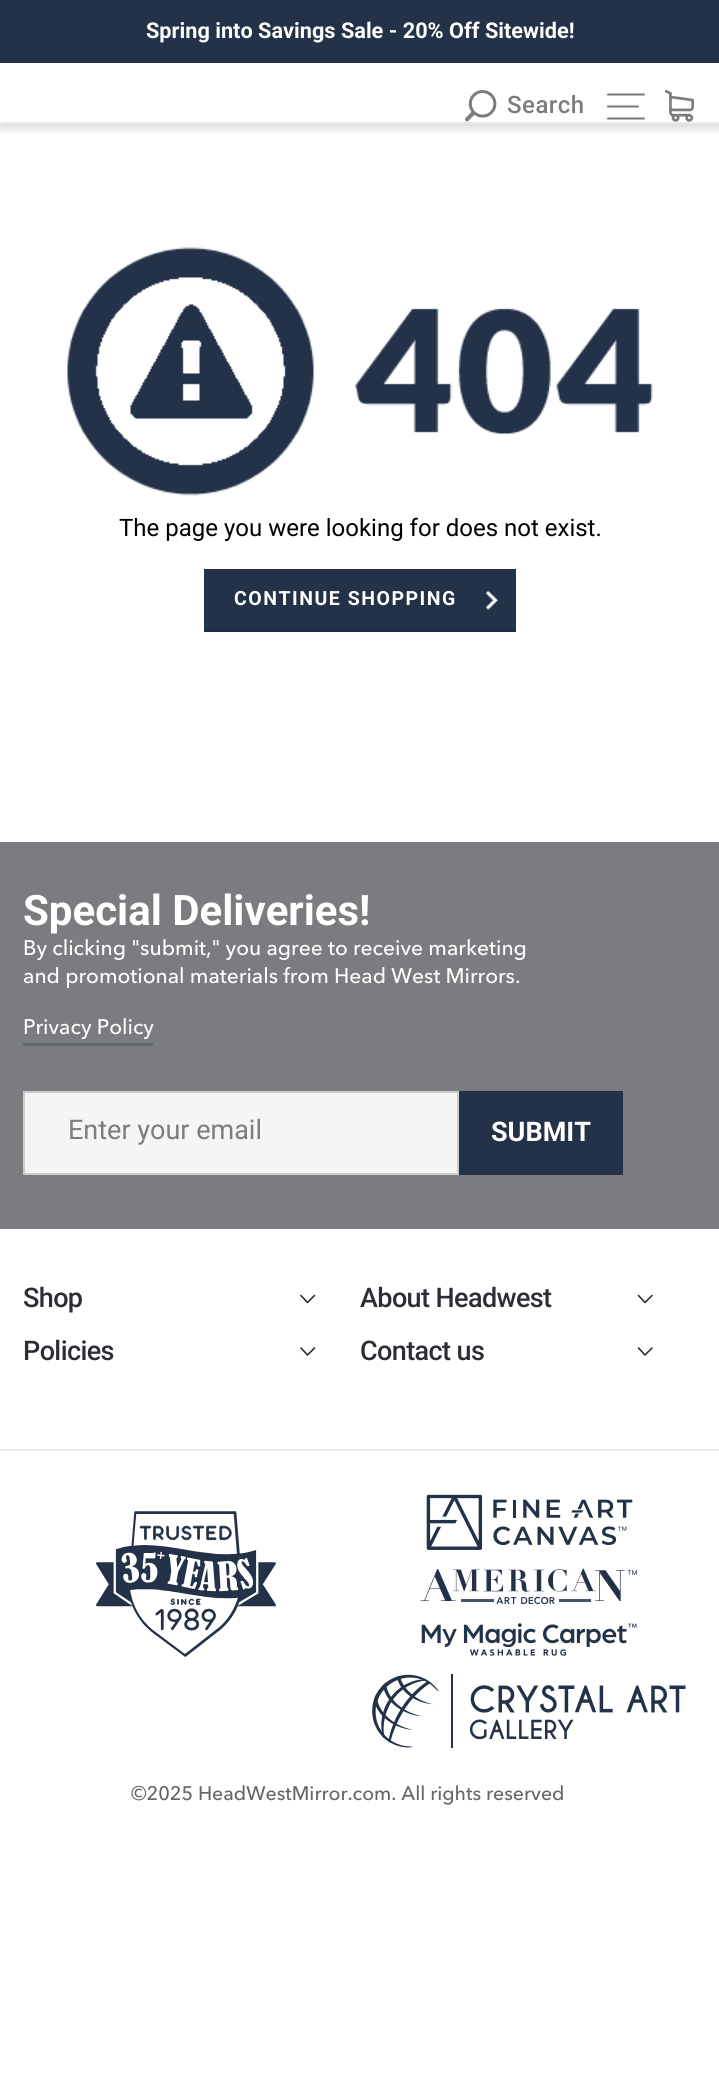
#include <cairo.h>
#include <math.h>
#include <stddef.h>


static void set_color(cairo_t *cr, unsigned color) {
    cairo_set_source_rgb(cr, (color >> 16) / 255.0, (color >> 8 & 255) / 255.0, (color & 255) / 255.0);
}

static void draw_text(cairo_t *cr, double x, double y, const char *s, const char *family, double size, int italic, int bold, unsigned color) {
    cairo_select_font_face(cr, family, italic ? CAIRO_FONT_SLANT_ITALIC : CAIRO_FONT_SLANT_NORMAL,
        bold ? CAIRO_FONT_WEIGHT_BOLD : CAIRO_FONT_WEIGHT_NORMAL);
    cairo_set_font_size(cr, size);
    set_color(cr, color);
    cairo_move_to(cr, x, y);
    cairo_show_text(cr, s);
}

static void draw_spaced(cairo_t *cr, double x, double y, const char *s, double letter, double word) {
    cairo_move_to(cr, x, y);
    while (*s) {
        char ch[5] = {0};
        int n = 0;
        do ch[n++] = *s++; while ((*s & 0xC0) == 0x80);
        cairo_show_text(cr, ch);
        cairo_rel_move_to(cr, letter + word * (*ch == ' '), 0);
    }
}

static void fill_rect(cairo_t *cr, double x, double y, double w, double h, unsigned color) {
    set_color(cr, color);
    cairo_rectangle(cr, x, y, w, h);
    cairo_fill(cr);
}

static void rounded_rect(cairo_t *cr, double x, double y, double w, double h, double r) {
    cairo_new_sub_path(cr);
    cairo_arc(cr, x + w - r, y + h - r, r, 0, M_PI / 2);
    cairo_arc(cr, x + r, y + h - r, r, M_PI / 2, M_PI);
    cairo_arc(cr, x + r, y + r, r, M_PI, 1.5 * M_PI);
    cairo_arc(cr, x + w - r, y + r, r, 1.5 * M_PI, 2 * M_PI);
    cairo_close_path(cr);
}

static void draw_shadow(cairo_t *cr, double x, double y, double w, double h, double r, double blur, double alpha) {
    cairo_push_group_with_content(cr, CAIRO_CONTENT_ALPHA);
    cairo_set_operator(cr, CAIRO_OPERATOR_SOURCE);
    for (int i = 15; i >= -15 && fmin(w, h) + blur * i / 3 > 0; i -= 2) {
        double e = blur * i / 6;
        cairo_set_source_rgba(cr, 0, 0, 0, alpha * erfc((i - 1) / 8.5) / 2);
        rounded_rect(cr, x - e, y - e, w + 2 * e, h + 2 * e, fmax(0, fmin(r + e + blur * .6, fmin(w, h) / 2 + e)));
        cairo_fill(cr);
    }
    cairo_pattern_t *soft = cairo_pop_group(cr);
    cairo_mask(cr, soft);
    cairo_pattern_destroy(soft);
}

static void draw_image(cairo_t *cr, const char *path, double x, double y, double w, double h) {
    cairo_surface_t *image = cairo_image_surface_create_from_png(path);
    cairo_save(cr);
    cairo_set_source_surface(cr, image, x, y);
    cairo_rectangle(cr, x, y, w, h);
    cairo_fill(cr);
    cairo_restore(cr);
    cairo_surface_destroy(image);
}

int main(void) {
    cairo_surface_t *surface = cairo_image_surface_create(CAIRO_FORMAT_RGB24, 719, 2079);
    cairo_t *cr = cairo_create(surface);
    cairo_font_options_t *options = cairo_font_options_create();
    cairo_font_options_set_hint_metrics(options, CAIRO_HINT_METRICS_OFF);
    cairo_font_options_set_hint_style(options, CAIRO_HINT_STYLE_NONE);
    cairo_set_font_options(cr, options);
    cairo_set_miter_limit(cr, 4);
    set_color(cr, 0xFFFFFF);
    cairo_paint(cr);
    fill_rect(cr, 0, 0, 719, 63, 0x233249);
    draw_text(cr, 146, 38, "Spring into Savings Sale - 20% Off Sitewide!", "Roboto", 21.7, 0, 1, 0xFFFFFF);
    cairo_save(cr);
    cairo_rectangle(cr, 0, 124, 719, 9);
    cairo_clip(cr);
    set_color(cr, 0x000000);
    draw_shadow(cr, 0, 68, 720, 60, 0, 4.5, 0.16);
    cairo_restore(cr);
    fill_rect(cr, 0, 122, 719, 2, 0xE9E9E9);
    draw_image(cr, "assets/img1.png", 465, 90, 32, 32);
    cairo_select_font_face(cr, "Roboto Medium", CAIRO_FONT_SLANT_NORMAL, CAIRO_FONT_WEIGHT_NORMAL);
    cairo_set_font_size(cr, 24);
    set_color(cr, 0x7B7C80);
    draw_spaced(cr, 507, 113, "Search", 0.5, 0);
    cairo_new_path(cr);
    cairo_move_to(cr, 608, 94.5);
    cairo_line_to(cr, 644, 94.5);
    cairo_move_to(cr, 608, 106.5);
    cairo_line_to(cr, 638, 106.5);
    cairo_move_to(cr, 608, 118.5);
    cairo_line_to(cr, 644, 118.5);
    cairo_set_line_width(cr, 2.1);
    cairo_set_line_cap(cr, CAIRO_LINE_CAP_ROUND);
    cairo_set_line_join(cr, CAIRO_LINE_JOIN_ROUND);
    cairo_stroke(cr);
    draw_image(cr, "assets/img2.png", 665, 90, 29, 32);
    draw_image(cr, "assets/img3.png", 67, 247, 586, 249);
    draw_text(cr, 119, 536, "The page you were looking for does not exist.", "Roboto", 24, 0, 0, 0x000000);
    fill_rect(cr, 204, 569, 312, 60, 0x233249);
    draw_image(cr, "assets/img4.png", 486, 591, 12, 19);
    fill_rect(cr, 204, 629, 312, 3, 0x1D2D45);
    cairo_select_font_face(cr, "Roboto", CAIRO_FONT_SLANT_NORMAL, CAIRO_FONT_WEIGHT_BOLD);
    cairo_set_font_size(cr, 19.5);
    set_color(cr, 0xFFFFFF);
    draw_spaced(cr, 234, 605, "CONTINUE SHOPPING", 1.5, 0);
    fill_rect(cr, 0, 842, 719, 387, 0x7B7C80);
    draw_text(cr, 23, 925, "Special Deliveries!", "Roboto", 42, 0, 1, 0xFFFFFF);
    draw_text(cr, 23, 955, "By clicking \"submit,\" you agree to receive marketing", "Avenir Next Medium", 21, 0, 0, 0xFFFFFF);
    draw_text(cr, 23, 983, "and promotional materials from Head West Mirrors.", "Avenir Next Medium", 21, 0, 0, 0xFFFFFF);
    fill_rect(cr, 23, 1043, 130, 3, 0x646871);
    draw_text(cr, 23, 1034, "Privacy Policy", "Avenir Next Medium", 21, 0, 0, 0xFFFFFF);
    set_color(cr, 0xF5F5F5);
    cairo_rectangle(cr, 24, 1092, 434, 82);
    cairo_fill_preserve(cr);
    set_color(cr, 0xCCCCCC);
    cairo_set_line_width(cr, 2);
    cairo_set_line_cap(cr, CAIRO_LINE_CAP_BUTT);
    cairo_set_line_join(cr, CAIRO_LINE_JOIN_MITER);
    cairo_stroke(cr);
    draw_text(cr, 68, 1139, "Enter your email", "Roboto", 27, 0, 0, 0x7B7C80);
    fill_rect(cr, 459, 1091, 164, 84, 0x233249);
    draw_text(cr, 491, 1141, "SUBMIT", "Roboto", 27, 0, 1, 0xFFFFFF);
    cairo_select_font_face(cr, "Roboto Medium", CAIRO_FONT_SLANT_NORMAL, CAIRO_FONT_WEIGHT_NORMAL);
    set_color(cr, 0x2C2E35);
    draw_spaced(cr, 23, 1307, "Shop", -0.6, 0);
    cairo_new_path(cr);
    cairo_move_to(cr, 301, 1295.5);
    cairo_line_to(cr, 307.5, 1302.5);
    cairo_line_to(cr, 314.5, 1295.5);
    cairo_set_line_width(cr, 1.6);
    cairo_set_line_cap(cr, CAIRO_LINE_CAP_ROUND);
    cairo_set_line_join(cr, CAIRO_LINE_JOIN_ROUND);
    cairo_stroke(cr);
    draw_spaced(cr, 360, 1307, "About Headwest", -0.6, 0);
    cairo_new_path(cr);
    cairo_move_to(cr, 638.5, 1295.5);
    cairo_line_to(cr, 645, 1302.5);
    cairo_line_to(cr, 652, 1295.5);
    cairo_stroke(cr);
    draw_spaced(cr, 23, 1360, "Policies", -0.6, 0);
    cairo_new_path(cr);
    cairo_move_to(cr, 301, 1348);
    cairo_line_to(cr, 307.5, 1355);
    cairo_line_to(cr, 314.5, 1348);
    cairo_stroke(cr);
    draw_spaced(cr, 360, 1360, "Contact us", -0.6, 0);
    cairo_new_path(cr);
    cairo_move_to(cr, 638.5, 1348);
    cairo_line_to(cr, 645, 1355);
    cairo_line_to(cr, 652, 1348);
    cairo_stroke(cr);
    fill_rect(cr, 0, 1449, 719, 2, 0xE9E9E9);
    draw_image(cr, "assets/img5.png", 96, 1511, 180, 146);
    draw_image(cr, "assets/img6.png", 426, 1494, 207, 56);
    draw_image(cr, "assets/img7.png", 420, 1568, 217, 37);
    draw_image(cr, "assets/img8.png", 421, 1623, 216, 33);
    draw_image(cr, "assets/img9.png", 372, 1674, 314, 74);
    draw_text(cr, 131, 1800, "©2025 HeadWestMirror.com. All rights reserved", "Avenir Next Medium", 19.5, 0, 0, 0x666666);
    cairo_surface_write_to_png(surface, "output.png");
    cairo_font_options_destroy(options);
    cairo_destroy(cr);
    cairo_surface_destroy(surface);
    return 0;
}
